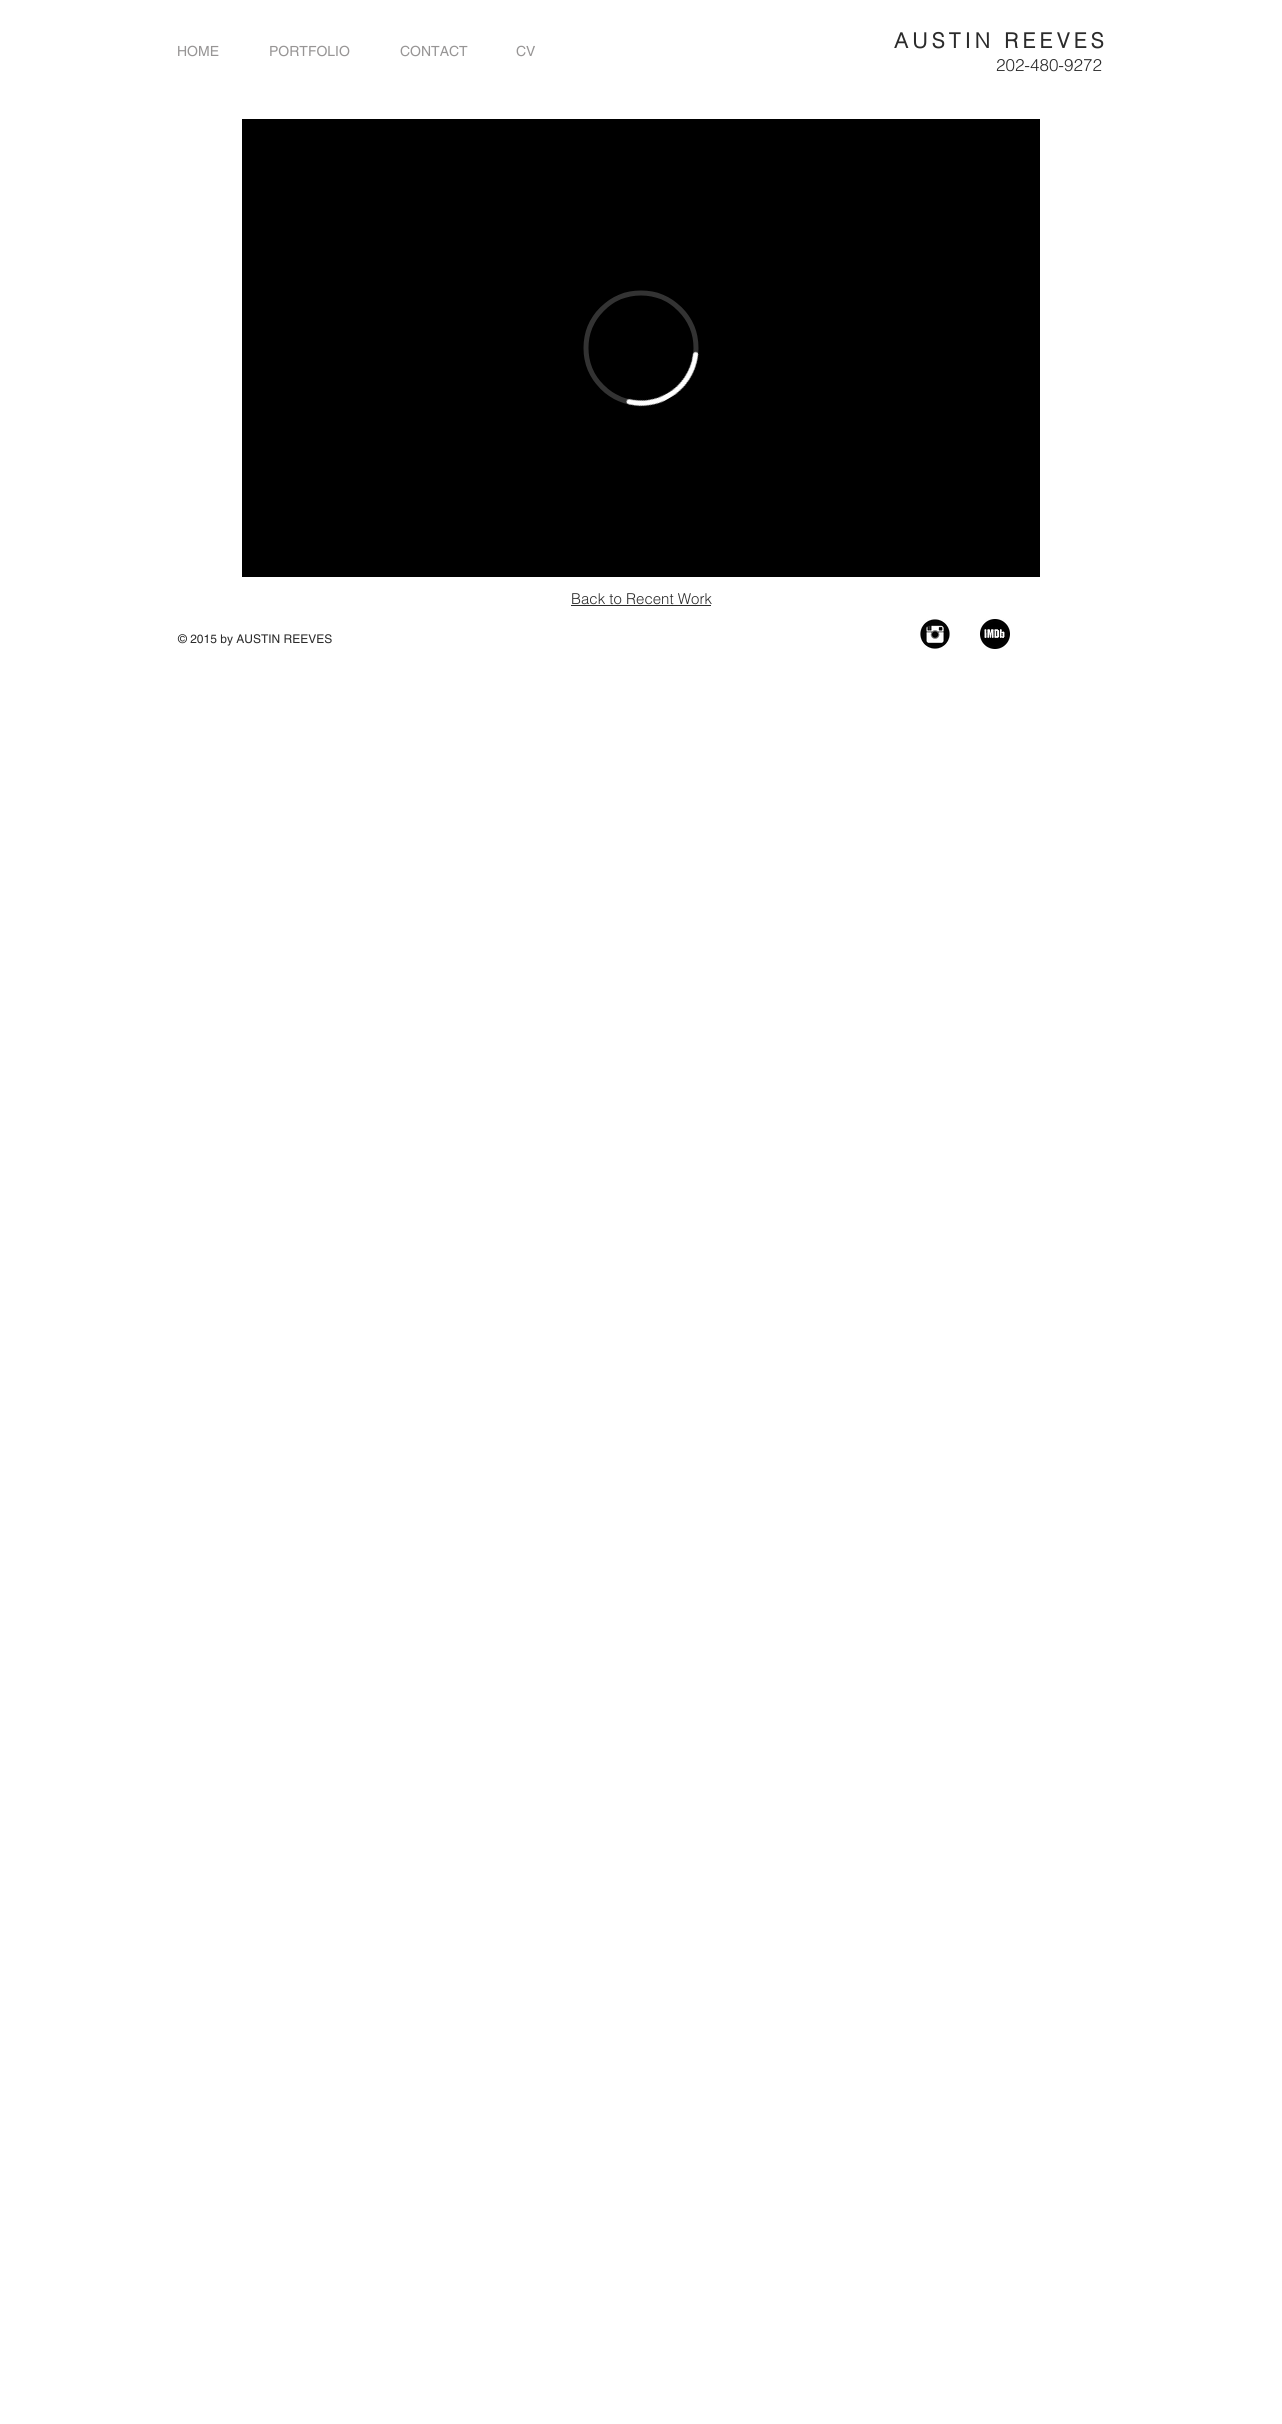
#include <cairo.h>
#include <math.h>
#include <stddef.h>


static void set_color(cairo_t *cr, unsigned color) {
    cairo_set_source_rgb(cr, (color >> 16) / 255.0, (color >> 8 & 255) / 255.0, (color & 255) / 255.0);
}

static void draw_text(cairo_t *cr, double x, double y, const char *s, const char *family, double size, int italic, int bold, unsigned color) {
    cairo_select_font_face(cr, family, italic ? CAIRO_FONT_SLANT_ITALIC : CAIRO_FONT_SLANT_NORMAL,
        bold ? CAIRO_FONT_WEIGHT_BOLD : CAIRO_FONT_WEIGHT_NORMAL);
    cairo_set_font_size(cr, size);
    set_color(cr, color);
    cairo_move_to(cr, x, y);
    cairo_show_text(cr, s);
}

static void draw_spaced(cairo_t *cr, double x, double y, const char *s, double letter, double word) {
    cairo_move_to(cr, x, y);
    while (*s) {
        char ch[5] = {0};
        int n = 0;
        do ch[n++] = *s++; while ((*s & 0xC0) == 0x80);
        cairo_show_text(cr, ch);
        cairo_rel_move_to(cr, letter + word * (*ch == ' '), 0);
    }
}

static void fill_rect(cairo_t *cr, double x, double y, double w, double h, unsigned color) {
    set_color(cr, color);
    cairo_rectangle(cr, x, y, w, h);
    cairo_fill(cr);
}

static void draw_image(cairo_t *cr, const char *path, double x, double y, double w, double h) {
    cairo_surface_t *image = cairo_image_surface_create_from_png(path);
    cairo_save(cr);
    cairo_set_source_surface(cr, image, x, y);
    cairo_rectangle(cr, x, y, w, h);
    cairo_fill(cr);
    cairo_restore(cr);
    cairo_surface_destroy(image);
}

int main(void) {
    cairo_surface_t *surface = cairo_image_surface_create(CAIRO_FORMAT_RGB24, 1282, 2424);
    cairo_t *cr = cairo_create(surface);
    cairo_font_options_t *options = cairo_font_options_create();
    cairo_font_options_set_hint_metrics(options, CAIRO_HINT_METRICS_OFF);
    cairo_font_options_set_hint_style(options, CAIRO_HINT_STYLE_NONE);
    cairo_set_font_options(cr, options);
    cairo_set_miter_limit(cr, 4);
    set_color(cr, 0xFFFFFF);
    cairo_paint(cr);
    draw_text(cr, 177, 56, "HOME", "helvetica", 14, 0, 0, 0x979595);
    draw_text(cr, 269, 56, "PORTFOLIO", "helvetica", 14, 0, 0, 0x979595);
    draw_text(cr, 400, 56, "CONTACT", "helvetica", 14, 0, 0, 0x979595);
    draw_text(cr, 516, 56, "CV", "helvetica", 14, 0, 0, 0x979595);
    cairo_select_font_face(cr, "helvetica", CAIRO_FONT_SLANT_NORMAL, CAIRO_FONT_WEIGHT_BOLD);
    cairo_set_font_size(cr, 21);
    set_color(cr, 0x2B2B2B);
    draw_spaced(cr, 894, 48, "AUSTIN REEVES", 4.25, 0);
    draw_text(cr, 996, 71, "202-480-9272", "helvetica Light", 17, 0, 0, 0x2B2B2B);
    draw_image(cr, "assets/img1.png", 242, 119, 798, 458);
    draw_text(cr, 571, 604, "Back to Recent Work", "helvetica Light", 15, 0, 0, 0x2B2B2B);
    fill_rect(cr, 571, 605, 140, 1, 0x2B2B2B);
    draw_text(cr, 178, 643, "© 2015 by AUSTIN REEVES", "helvetica", 12, 0, 0, 0x2B2B2B);
    draw_image(cr, "assets/img2.png", 920, 619, 30, 30);
    draw_image(cr, "assets/img3.png", 980, 619, 30, 30);
    cairo_surface_write_to_png(surface, "output.png");
    cairo_font_options_destroy(options);
    cairo_destroy(cr);
    cairo_surface_destroy(surface);
    return 0;
}
